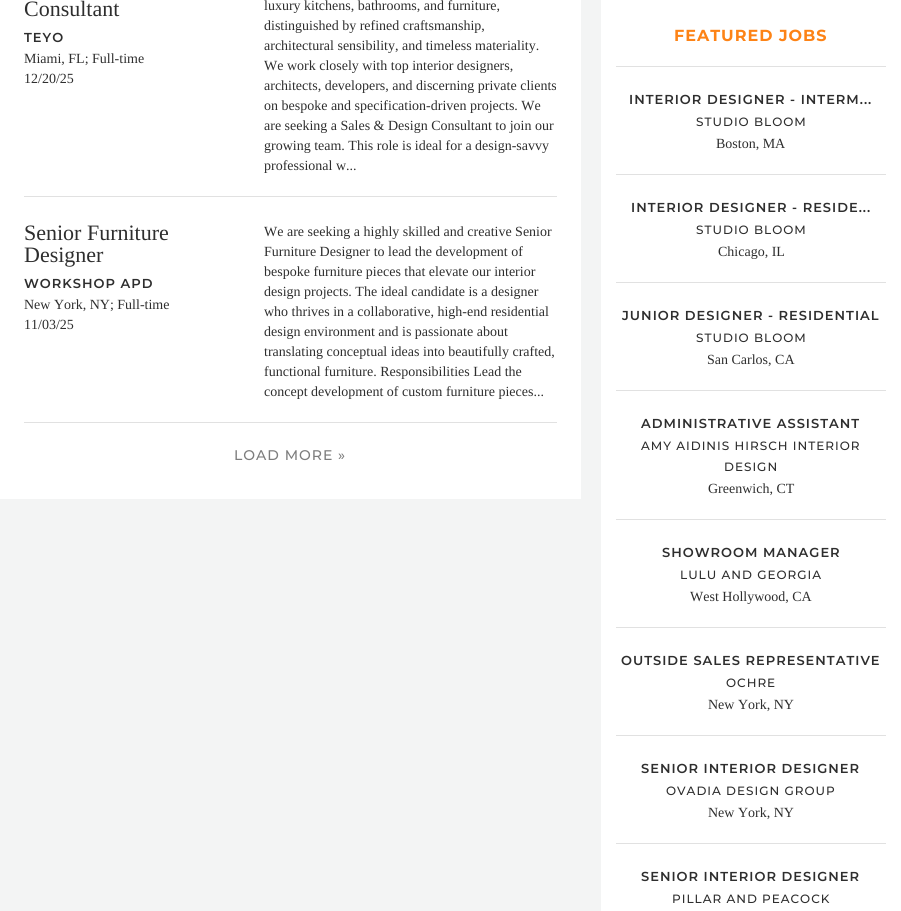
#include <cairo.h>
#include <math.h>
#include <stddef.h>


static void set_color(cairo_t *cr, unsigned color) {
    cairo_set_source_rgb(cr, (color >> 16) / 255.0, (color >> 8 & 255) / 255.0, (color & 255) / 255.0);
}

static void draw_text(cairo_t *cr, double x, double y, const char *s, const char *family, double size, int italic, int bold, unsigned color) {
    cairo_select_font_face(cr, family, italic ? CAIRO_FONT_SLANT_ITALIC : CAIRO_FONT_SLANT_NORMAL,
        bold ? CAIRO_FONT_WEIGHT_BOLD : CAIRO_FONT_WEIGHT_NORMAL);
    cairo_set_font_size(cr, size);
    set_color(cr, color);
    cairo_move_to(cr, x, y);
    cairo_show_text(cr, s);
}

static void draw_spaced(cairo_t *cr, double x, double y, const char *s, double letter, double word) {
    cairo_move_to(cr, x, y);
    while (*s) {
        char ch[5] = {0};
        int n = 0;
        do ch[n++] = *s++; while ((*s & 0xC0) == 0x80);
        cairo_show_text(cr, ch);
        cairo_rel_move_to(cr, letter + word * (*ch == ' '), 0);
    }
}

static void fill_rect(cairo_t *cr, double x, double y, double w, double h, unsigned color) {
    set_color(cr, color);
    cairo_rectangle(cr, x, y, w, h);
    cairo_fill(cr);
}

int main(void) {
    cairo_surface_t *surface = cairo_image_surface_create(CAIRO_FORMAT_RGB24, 901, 911);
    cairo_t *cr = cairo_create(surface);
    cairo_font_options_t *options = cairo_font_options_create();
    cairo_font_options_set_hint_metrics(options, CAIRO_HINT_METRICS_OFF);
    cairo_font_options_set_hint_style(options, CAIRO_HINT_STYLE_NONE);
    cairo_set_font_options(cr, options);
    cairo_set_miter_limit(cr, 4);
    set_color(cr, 0xF3F4F4);
    cairo_paint(cr);
    fill_rect(cr, 0, 0, 581, 499, 0xFFFFFF);
    fill_rect(cr, 24, 196, 533, 1, 0xE1E1E1);
    draw_text(cr, 24, 16, "Consultant", "Liberation Serif", 22, 0, 0, 0x2E2E2E);
    cairo_select_font_face(cr, "Montserrat SemiBold", CAIRO_FONT_SLANT_NORMAL, CAIRO_FONT_WEIGHT_NORMAL);
    cairo_set_font_size(cr, 13);
    draw_spaced(cr, 24, 42, "TEYO", 1, 0);
    draw_text(cr, 24, 63, "Miami, FL; Full-time", "Liberation Serif", 14, 0, 0, 0x2E2E2E);
    draw_text(cr, 24, 83, "12/20/25", "Liberation Serif", 14, 0, 0, 0x2E2E2E);
    draw_text(cr, 264, 10, "luxury kitchens, bathrooms, and furniture,", "Liberation Serif", 14, 0, 0, 0x2E2E2E);
    draw_text(cr, 264, 30, "distinguished by refined craftsmanship,", "Liberation Serif", 14, 0, 0, 0x2E2E2E);
    draw_text(cr, 264, 50, "architectural sensibility, and timeless materiality.", "Liberation Serif", 14, 0, 0, 0x2E2E2E);
    draw_text(cr, 264, 70, "We work closely with top interior designers,", "Liberation Serif", 14, 0, 0, 0x2E2E2E);
    draw_text(cr, 264, 90, "architects, developers, and discerning private clients", "Liberation Serif", 14, 0, 0, 0x2E2E2E);
    draw_text(cr, 264, 110, "on bespoke and specification-driven projects. We", "Liberation Serif", 14, 0, 0, 0x2E2E2E);
    draw_text(cr, 264, 130, "are seeking a Sales & Design Consultant to join our", "Liberation Serif", 14, 0, 0, 0x2E2E2E);
    draw_text(cr, 264, 150, "growing team. This role is ideal for a design-savvy", "Liberation Serif", 14, 0, 0, 0x2E2E2E);
    draw_text(cr, 264, 170, "professional w...", "Liberation Serif", 14, 0, 0, 0x2E2E2E);
    fill_rect(cr, 24, 422, 533, 1, 0xE1E1E1);
    draw_text(cr, 24, 240, "Senior Furniture", "Liberation Serif", 22, 0, 0, 0x2E2E2E);
    draw_text(cr, 24, 262, "Designer", "Liberation Serif", 22, 0, 0, 0x2E2E2E);
    cairo_select_font_face(cr, "Montserrat SemiBold", CAIRO_FONT_SLANT_NORMAL, CAIRO_FONT_WEIGHT_NORMAL);
    cairo_set_font_size(cr, 13);
    draw_spaced(cr, 24, 288, "WORKSHOP APD", 1, 0);
    draw_text(cr, 24, 309, "New York, NY; Full-time", "Liberation Serif", 14, 0, 0, 0x2E2E2E);
    draw_text(cr, 24, 329, "11/03/25", "Liberation Serif", 14, 0, 0, 0x2E2E2E);
    draw_text(cr, 264, 236, "We are seeking a highly skilled and creative Senior", "Liberation Serif", 14, 0, 0, 0x2E2E2E);
    draw_text(cr, 264, 256, "Furniture Designer to lead the development of", "Liberation Serif", 14, 0, 0, 0x2E2E2E);
    draw_text(cr, 264, 276, "bespoke furniture pieces that elevate our interior", "Liberation Serif", 14, 0, 0, 0x2E2E2E);
    draw_text(cr, 264, 296, "design projects. The ideal candidate is a designer", "Liberation Serif", 14, 0, 0, 0x2E2E2E);
    draw_text(cr, 264, 316, "who thrives in a collaborative, high-end residential", "Liberation Serif", 14, 0, 0, 0x2E2E2E);
    draw_text(cr, 264, 336, "design environment and is passionate about", "Liberation Serif", 14, 0, 0, 0x2E2E2E);
    draw_text(cr, 264, 356, "translating conceptual ideas into beautifully crafted,", "Liberation Serif", 14, 0, 0, 0x2E2E2E);
    draw_text(cr, 264, 376, "functional furniture. Responsibilities Lead the", "Liberation Serif", 14, 0, 0, 0x2E2E2E);
    draw_text(cr, 264, 396, "concept development of custom furniture pieces...", "Liberation Serif", 14, 0, 0, 0x2E2E2E);
    cairo_select_font_face(cr, "Montserrat Medium", CAIRO_FONT_SLANT_NORMAL, CAIRO_FONT_WEIGHT_NORMAL);
    set_color(cr, 0x7D7D7D);
    draw_spaced(cr, 234, 460, "LOAD MORE »", 1, 0);
    fill_rect(cr, 601, 0, 300, 911, 0xFFFFFF);
    fill_rect(cr, 616, 66, 270, 1, 0xE1E1E1);
    cairo_select_font_face(cr, "Montserrat", CAIRO_FONT_SLANT_NORMAL, CAIRO_FONT_WEIGHT_BOLD);
    cairo_set_font_size(cr, 16);
    set_color(cr, 0xFD8316);
    draw_spaced(cr, 674, 41, "FEATURED JOBS", 1, 0);
    fill_rect(cr, 616, 174, 270, 1, 0xE1E1E1);
    cairo_select_font_face(cr, "Montserrat SemiBold", CAIRO_FONT_SLANT_NORMAL, CAIRO_FONT_WEIGHT_NORMAL);
    cairo_set_font_size(cr, 13);
    set_color(cr, 0x2E2E2E);
    draw_spaced(cr, 629, 104, "INTERIOR DESIGNER - INTERM...", 1, 0);
    cairo_select_font_face(cr, "Montserrat Medium", CAIRO_FONT_SLANT_NORMAL, CAIRO_FONT_WEIGHT_NORMAL);
    cairo_set_font_size(cr, 12);
    draw_spaced(cr, 696, 126, "STUDIO BLOOM", 1, 0);
    draw_text(cr, 716, 148, "Boston, MA", "Liberation Serif", 14, 0, 0, 0x2E2E2E);
    fill_rect(cr, 616, 282, 270, 1, 0xE1E1E1);
    cairo_select_font_face(cr, "Montserrat SemiBold", CAIRO_FONT_SLANT_NORMAL, CAIRO_FONT_WEIGHT_NORMAL);
    cairo_set_font_size(cr, 13);
    set_color(cr, 0x2E2E2E);
    draw_spaced(cr, 631, 212, "INTERIOR DESIGNER - RESIDE...", 1, 0);
    cairo_select_font_face(cr, "Montserrat Medium", CAIRO_FONT_SLANT_NORMAL, CAIRO_FONT_WEIGHT_NORMAL);
    cairo_set_font_size(cr, 12);
    draw_spaced(cr, 696, 234, "STUDIO BLOOM", 1, 0);
    draw_text(cr, 718, 256, "Chicago, IL", "Liberation Serif", 14, 0, 0, 0x2E2E2E);
    fill_rect(cr, 616, 390, 270, 1, 0xE1E1E1);
    cairo_select_font_face(cr, "Montserrat SemiBold", CAIRO_FONT_SLANT_NORMAL, CAIRO_FONT_WEIGHT_NORMAL);
    cairo_set_font_size(cr, 13);
    set_color(cr, 0x2E2E2E);
    draw_spaced(cr, 622, 320, "JUNIOR DESIGNER - RESIDENTIAL", 1, 0);
    cairo_select_font_face(cr, "Montserrat Medium", CAIRO_FONT_SLANT_NORMAL, CAIRO_FONT_WEIGHT_NORMAL);
    cairo_set_font_size(cr, 12);
    draw_spaced(cr, 696, 342, "STUDIO BLOOM", 1, 0);
    draw_text(cr, 707, 364, "San Carlos, CA", "Liberation Serif", 14, 0, 0, 0x2E2E2E);
    fill_rect(cr, 616, 519, 270, 1, 0xE1E1E1);
    cairo_select_font_face(cr, "Montserrat SemiBold", CAIRO_FONT_SLANT_NORMAL, CAIRO_FONT_WEIGHT_NORMAL);
    cairo_set_font_size(cr, 13);
    set_color(cr, 0x2E2E2E);
    draw_spaced(cr, 641, 428, "ADMINISTRATIVE ASSISTANT", 1, 0);
    cairo_select_font_face(cr, "Montserrat Medium", CAIRO_FONT_SLANT_NORMAL, CAIRO_FONT_WEIGHT_NORMAL);
    cairo_set_font_size(cr, 12);
    draw_spaced(cr, 641, 450, "AMY AIDINIS HIRSCH INTERIOR", 1, 0);
    draw_spaced(cr, 724, 471, "DESIGN", 1, 0);
    draw_text(cr, 708, 493, "Greenwich, CT", "Liberation Serif", 14, 0, 0, 0x2E2E2E);
    fill_rect(cr, 616, 627, 270, 1, 0xE1E1E1);
    cairo_select_font_face(cr, "Montserrat SemiBold", CAIRO_FONT_SLANT_NORMAL, CAIRO_FONT_WEIGHT_NORMAL);
    cairo_set_font_size(cr, 13);
    set_color(cr, 0x2E2E2E);
    draw_spaced(cr, 662, 557, "SHOWROOM MANAGER", 1, 0);
    cairo_select_font_face(cr, "Montserrat Medium", CAIRO_FONT_SLANT_NORMAL, CAIRO_FONT_WEIGHT_NORMAL);
    cairo_set_font_size(cr, 12);
    draw_spaced(cr, 680, 579, "LULU AND GEORGIA", 1, 0);
    draw_text(cr, 690, 601, "West Hollywood, CA", "Liberation Serif", 14, 0, 0, 0x2E2E2E);
    fill_rect(cr, 616, 735, 270, 1, 0xE1E1E1);
    cairo_select_font_face(cr, "Montserrat SemiBold", CAIRO_FONT_SLANT_NORMAL, CAIRO_FONT_WEIGHT_NORMAL);
    cairo_set_font_size(cr, 13);
    set_color(cr, 0x2E2E2E);
    draw_spaced(cr, 621, 665, "OUTSIDE SALES REPRESENTATIVE", 1, 0);
    cairo_select_font_face(cr, "Montserrat Medium", CAIRO_FONT_SLANT_NORMAL, CAIRO_FONT_WEIGHT_NORMAL);
    cairo_set_font_size(cr, 12);
    draw_spaced(cr, 726, 687, "OCHRE", 1, 0);
    draw_text(cr, 708, 709, "New York, NY", "Liberation Serif", 14, 0, 0, 0x2E2E2E);
    fill_rect(cr, 616, 843, 270, 1, 0xE1E1E1);
    cairo_select_font_face(cr, "Montserrat SemiBold", CAIRO_FONT_SLANT_NORMAL, CAIRO_FONT_WEIGHT_NORMAL);
    cairo_set_font_size(cr, 13);
    set_color(cr, 0x2E2E2E);
    draw_spaced(cr, 641, 773, "SENIOR INTERIOR DESIGNER", 1, 0);
    cairo_select_font_face(cr, "Montserrat Medium", CAIRO_FONT_SLANT_NORMAL, CAIRO_FONT_WEIGHT_NORMAL);
    cairo_set_font_size(cr, 12);
    draw_spaced(cr, 666, 795, "OVADIA DESIGN GROUP", 1, 0);
    draw_text(cr, 708, 817, "New York, NY", "Liberation Serif", 14, 0, 0, 0x2E2E2E);
    cairo_select_font_face(cr, "Montserrat SemiBold", CAIRO_FONT_SLANT_NORMAL, CAIRO_FONT_WEIGHT_NORMAL);
    cairo_set_font_size(cr, 13);
    draw_spaced(cr, 641, 881, "SENIOR INTERIOR DESIGNER", 1, 0);
    cairo_select_font_face(cr, "Montserrat Medium", CAIRO_FONT_SLANT_NORMAL, CAIRO_FONT_WEIGHT_NORMAL);
    cairo_set_font_size(cr, 12);
    draw_spaced(cr, 672, 903, "PILLAR AND PEACOCK", 1, 0);
    cairo_surface_write_to_png(surface, "output.png");
    cairo_font_options_destroy(options);
    cairo_destroy(cr);
    cairo_surface_destroy(surface);
    return 0;
}
